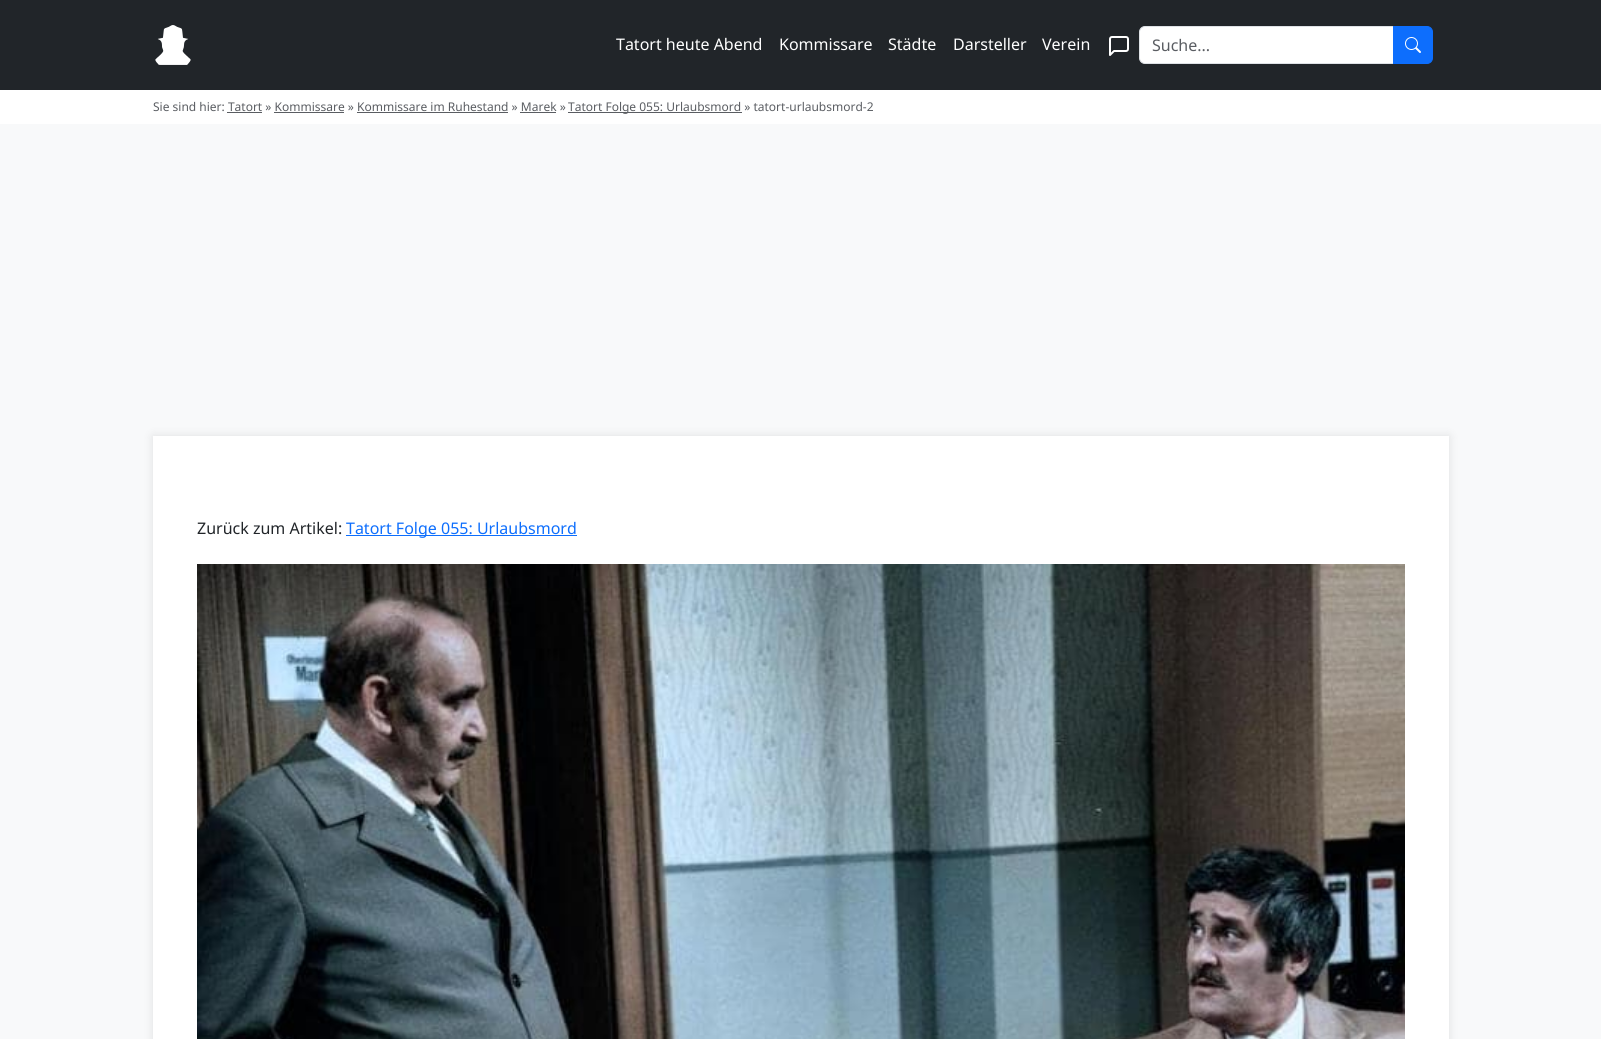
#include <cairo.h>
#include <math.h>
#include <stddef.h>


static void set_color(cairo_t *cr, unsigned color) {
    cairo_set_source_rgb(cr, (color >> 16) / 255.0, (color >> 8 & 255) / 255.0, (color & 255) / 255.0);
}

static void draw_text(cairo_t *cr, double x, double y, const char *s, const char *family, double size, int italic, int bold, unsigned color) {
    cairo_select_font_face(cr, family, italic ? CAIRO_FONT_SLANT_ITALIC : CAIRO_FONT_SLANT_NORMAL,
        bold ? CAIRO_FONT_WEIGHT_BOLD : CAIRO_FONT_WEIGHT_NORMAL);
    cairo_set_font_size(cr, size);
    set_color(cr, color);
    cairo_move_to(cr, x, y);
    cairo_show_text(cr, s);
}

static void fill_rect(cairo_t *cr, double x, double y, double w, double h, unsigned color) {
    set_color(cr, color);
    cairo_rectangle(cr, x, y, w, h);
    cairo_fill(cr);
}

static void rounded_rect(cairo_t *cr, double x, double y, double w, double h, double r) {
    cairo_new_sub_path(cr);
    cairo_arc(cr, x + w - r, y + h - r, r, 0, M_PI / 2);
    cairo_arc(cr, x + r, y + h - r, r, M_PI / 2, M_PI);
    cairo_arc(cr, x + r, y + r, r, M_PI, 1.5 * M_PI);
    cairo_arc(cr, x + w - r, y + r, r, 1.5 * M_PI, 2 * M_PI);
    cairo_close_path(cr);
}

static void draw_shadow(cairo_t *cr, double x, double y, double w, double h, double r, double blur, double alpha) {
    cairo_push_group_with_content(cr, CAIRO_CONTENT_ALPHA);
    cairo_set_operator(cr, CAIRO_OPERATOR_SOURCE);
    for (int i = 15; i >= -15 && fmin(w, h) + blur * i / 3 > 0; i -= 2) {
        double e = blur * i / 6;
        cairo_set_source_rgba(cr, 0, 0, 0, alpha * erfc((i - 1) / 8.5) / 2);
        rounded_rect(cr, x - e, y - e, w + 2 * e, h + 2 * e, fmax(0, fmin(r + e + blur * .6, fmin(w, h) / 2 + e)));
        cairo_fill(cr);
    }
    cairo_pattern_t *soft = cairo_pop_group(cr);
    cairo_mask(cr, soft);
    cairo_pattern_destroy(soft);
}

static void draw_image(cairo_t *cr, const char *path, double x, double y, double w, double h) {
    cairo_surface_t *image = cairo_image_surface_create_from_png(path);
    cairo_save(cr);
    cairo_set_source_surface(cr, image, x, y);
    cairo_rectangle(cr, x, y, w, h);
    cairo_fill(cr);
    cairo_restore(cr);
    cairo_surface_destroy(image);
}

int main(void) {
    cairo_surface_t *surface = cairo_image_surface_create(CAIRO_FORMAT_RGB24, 1601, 1039);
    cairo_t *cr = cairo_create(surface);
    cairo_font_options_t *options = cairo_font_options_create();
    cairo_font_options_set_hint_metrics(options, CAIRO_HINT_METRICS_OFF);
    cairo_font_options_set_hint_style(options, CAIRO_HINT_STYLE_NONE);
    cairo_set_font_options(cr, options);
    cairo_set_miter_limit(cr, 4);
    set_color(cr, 0xF8F9FA);
    cairo_paint(cr);
    fill_rect(cr, 0, 0, 1601, 90, 0x212529);
    draw_image(cr, "assets/img1.png", 155, 25, 36, 40);
    draw_text(cr, 616, 50, "Tatort heute Abend", "Noto Sans", 16, 0, 0, 0xFFFFFF);
    draw_text(cr, 779, 50, "Kommissare", "Noto Sans", 16, 0, 0, 0xFFFFFF);
    draw_text(cr, 888, 50, "Städte", "Noto Sans", 16, 0, 0, 0xFFFFFF);
    draw_text(cr, 953, 50, "Darsteller", "Noto Sans", 16, 0, 0, 0xFFFFFF);
    draw_text(cr, 1042, 50, "Verein", "Noto Sans", 16, 0, 0, 0xFFFFFF);
    draw_image(cr, "assets/img2.png", 1109, 36, 20, 20);
    cairo_new_path(cr);
    cairo_move_to(cr, 1145, 26.5);
    cairo_line_to(cr, 1393.5, 26.5);
    cairo_line_to(cr, 1393.5, 63.5);
    cairo_line_to(cr, 1145, 63.5);
    cairo_curve_to(cr, 1142, 63.5, 1139.5, 61, 1139.5, 58);
    cairo_line_to(cr, 1139.5, 32);
    cairo_curve_to(cr, 1139.5, 29, 1142, 26.5, 1145, 26.5);
    cairo_close_path(cr);
    cairo_fill_preserve(cr);
    set_color(cr, 0xDEE2E6);
    cairo_set_line_width(cr, 1);
    cairo_stroke(cr);
    draw_text(cr, 1152, 51, "Suche...", "Noto Sans", 16, 0, 0, 0x5A5D62);
    set_color(cr, 0x0D6EFD);
    cairo_new_path(cr);
    cairo_move_to(cr, 1393.5, 26.5);
    cairo_line_to(cr, 1427, 26.5);
    cairo_curve_to(cr, 1430, 26.5, 1432.5, 29, 1432.5, 32);
    cairo_line_to(cr, 1432.5, 58);
    cairo_curve_to(cr, 1432.5, 61, 1430, 63.5, 1427, 63.5);
    cairo_line_to(cr, 1393.5, 63.5);
    cairo_close_path(cr);
    cairo_fill_preserve(cr);
    cairo_stroke(cr);
    draw_image(cr, "assets/img3.png", 1405, 37, 16, 16);
    fill_rect(cr, 0, 90, 1601, 34, 0xFFFFFF);
    draw_text(cr, 153, 111, "Sie sind hier: Tatort » Kommissare » Kommissare im Ruhestand » Marek »", "Noto Sans", 12, 0, 0, 0x5A5D62);
    fill_rect(cr, 568, 112, 174, 1, 0x5A5D62);
    draw_text(cr, 568, 111, "Tatort Folge 055: Urlaubsmord » tatort-urlaubsmord-2", "Noto Sans", 12, 0, 0, 0x5A5D62);
    fill_rect(cr, 227, 112, 35, 1, 0x5A5D62);
    fill_rect(cr, 274, 112, 70, 1, 0x5A5D62);
    fill_rect(cr, 357, 112, 151, 1, 0x5A5D62);
    fill_rect(cr, 520, 112, 36, 1, 0x5A5D62);
    set_color(cr, 0x000000);
    draw_shadow(cr, 153, 436, 1296, 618, 0, 5, 0.1);
    fill_rect(cr, 153, 436, 1296, 603, 0xFFFFFF);
    draw_text(cr, 197, 534, "Zurück zum Artikel:", "Noto Sans", 16, 0, 0, 0x212529);
    fill_rect(cr, 346, 535, 231, 1, 0x0D6EFD);
    draw_text(cr, 346, 534, "Tatort Folge 055: Urlaubsmord", "Noto Sans", 16, 0, 0, 0x0D6EFD);
    draw_image(cr, "assets/img4.png", 197, 564, 1208, 475);
    cairo_surface_write_to_png(surface, "output.png");
    cairo_font_options_destroy(options);
    cairo_destroy(cr);
    cairo_surface_destroy(surface);
    return 0;
}
